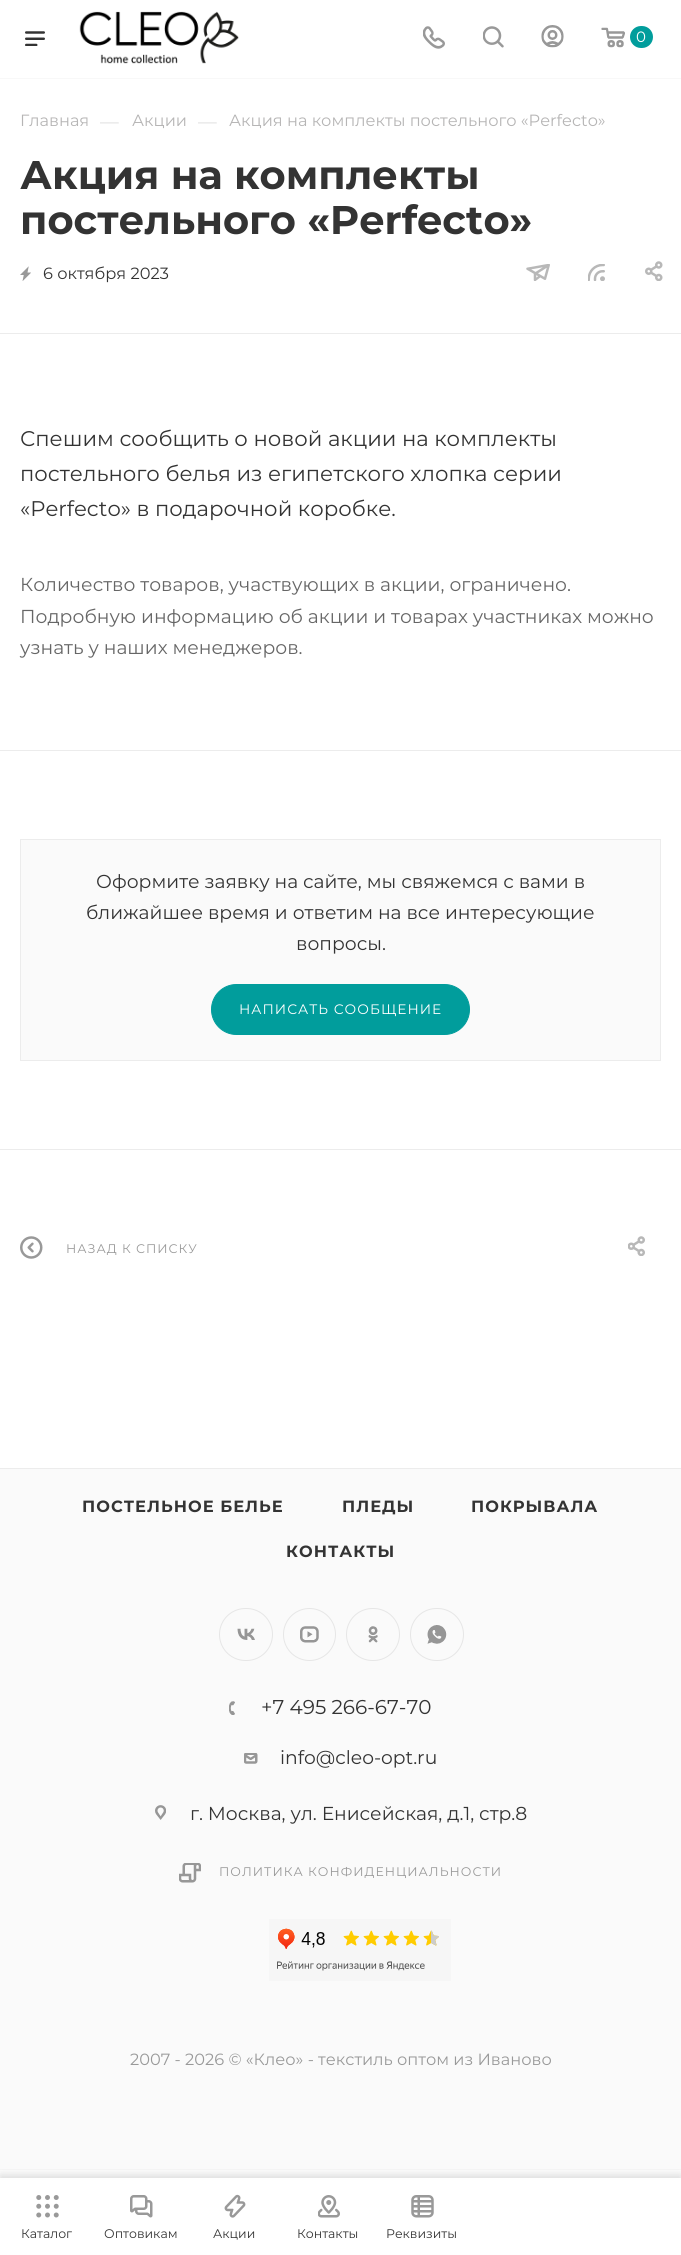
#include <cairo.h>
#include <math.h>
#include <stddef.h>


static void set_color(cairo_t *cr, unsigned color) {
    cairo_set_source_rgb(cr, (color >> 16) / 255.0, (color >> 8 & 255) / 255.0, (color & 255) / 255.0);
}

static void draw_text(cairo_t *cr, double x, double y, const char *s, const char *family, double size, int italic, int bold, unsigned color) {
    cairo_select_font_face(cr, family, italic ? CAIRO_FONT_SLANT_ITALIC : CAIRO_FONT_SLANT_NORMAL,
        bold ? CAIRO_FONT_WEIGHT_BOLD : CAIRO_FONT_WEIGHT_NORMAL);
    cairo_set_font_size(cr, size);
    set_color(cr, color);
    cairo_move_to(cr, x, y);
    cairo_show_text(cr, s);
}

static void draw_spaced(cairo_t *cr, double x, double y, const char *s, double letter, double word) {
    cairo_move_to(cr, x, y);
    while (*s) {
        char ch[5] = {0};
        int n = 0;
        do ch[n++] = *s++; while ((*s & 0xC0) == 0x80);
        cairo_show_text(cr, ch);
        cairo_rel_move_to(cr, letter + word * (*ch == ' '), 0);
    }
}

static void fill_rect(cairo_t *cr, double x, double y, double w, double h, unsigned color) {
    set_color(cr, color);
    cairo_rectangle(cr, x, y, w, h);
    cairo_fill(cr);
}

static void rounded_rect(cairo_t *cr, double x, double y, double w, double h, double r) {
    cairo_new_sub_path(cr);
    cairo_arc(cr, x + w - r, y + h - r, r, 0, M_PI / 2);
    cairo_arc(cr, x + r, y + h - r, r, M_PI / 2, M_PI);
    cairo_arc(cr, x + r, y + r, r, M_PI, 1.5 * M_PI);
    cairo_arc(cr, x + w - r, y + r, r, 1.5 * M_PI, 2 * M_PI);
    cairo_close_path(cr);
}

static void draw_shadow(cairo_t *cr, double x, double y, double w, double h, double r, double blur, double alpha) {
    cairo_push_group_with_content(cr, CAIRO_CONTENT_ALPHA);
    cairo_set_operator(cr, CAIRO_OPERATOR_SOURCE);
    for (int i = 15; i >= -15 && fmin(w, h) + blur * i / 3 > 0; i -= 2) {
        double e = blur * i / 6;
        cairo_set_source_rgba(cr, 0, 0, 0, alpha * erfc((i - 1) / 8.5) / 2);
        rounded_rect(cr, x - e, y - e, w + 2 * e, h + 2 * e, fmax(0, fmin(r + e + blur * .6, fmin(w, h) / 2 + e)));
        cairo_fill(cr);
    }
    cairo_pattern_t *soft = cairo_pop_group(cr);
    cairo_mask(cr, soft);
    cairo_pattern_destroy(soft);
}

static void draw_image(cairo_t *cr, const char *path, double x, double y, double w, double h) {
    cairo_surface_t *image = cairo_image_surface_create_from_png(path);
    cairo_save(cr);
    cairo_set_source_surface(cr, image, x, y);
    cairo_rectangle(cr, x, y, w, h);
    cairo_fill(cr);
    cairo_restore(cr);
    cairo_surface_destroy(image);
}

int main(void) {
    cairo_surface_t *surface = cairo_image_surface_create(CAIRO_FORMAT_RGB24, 681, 2255);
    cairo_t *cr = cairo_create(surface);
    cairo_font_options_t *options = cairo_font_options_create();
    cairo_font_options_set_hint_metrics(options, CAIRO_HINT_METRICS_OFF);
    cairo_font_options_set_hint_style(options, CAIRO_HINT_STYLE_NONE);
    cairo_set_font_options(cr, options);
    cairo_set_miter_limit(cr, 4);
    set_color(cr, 0xFFFFFF);
    cairo_paint(cr);
    fill_rect(cr, 0, 78, 681, 1, 0xF8F8F8);
    draw_image(cr, "assets/img1.png", 25, 31, 20, 15);
    draw_image(cr, "assets/img2.png", 79, 11, 160, 53);
    draw_image(cr, "assets/img3.png", 423, 26, 22, 23);
    draw_image(cr, "assets/img4.png", 483, 26, 21, 22);
    draw_image(cr, "assets/img5.png", 541, 25, 23, 23);
    draw_image(cr, "assets/img6.png", 601, 27, 24, 21);
    set_color(cr, 0x019D9C);
    rounded_rect(cr, 630, 26, 23, 22, 11);
    cairo_fill(cr);
    draw_text(cr, 636, 42, "0", "Montserrat", 15, 0, 0, 0xFFFFFF);
    draw_text(cr, 20, 126, "Главная", "Montserrat", 16.25, 0, 0, 0xB6B5B5);
    draw_text(cr, 100, 128, "—", "Montserrat", 18.75, 0, 0, 0xDDDDDD);
    draw_text(cr, 132, 126, "Акции", "Montserrat", 16.25, 0, 0, 0xB6B5B5);
    draw_text(cr, 198, 128, "—", "Montserrat", 18.75, 0, 0, 0xDDDDDD);
    draw_text(cr, 229, 126, "Акция на комплекты постельного «Perfecto»", "Montserrat", 16.25, 0, 0, 0xB6B5B5);
    draw_text(cr, 20, 189, "Акция на комплекты", "Montserrat", 40, 0, 1, 0x333333);
    draw_text(cr, 20, 234, "постельного «Perfecto»", "Montserrat", 40, 0, 1, 0x333333);
    draw_image(cr, "assets/img7.png", 20, 266, 11, 15);
    draw_text(cr, 43, 279, "6 октября 2023", "Montserrat", 16.25, 0, 0, 0x333333);
    draw_image(cr, "assets/img8.png", 526, 264, 24, 17);
    draw_image(cr, "assets/img9.png", 588, 264, 17, 17);
    draw_image(cr, "assets/img10.png", 645, 261, 18, 20);
    fill_rect(cr, 0, 333, 681, 1, 0xECECEC);
    draw_text(cr, 20, 446, "Спешим сообщить о новой акции на комплекты", "Montserrat", 21.25, 0, 0, 0x333333);
    draw_text(cr, 20, 481, "постельного белья из египетского хлопка серии", "Montserrat", 21.25, 0, 0, 0x333333);
    draw_text(cr, 20, 516, "«Perfecto» в подарочной коробке.", "Montserrat", 21.25, 0, 0, 0x333333);
    draw_text(cr, 20, 591, "Количество товаров, участвующих в акции, ограничено.", "Montserrat", 18.75, 0, 0, 0x666666);
    draw_text(cr, 20, 623, "Подробную информацию об акции и товарах участниках можно", "Montserrat", 18.75, 0, 0, 0x666666);
    draw_text(cr, 20, 654, "узнать у наших менеджеров.", "Montserrat", 18.75, 0, 0, 0x666666);
    fill_rect(cr, 0, 750, 681, 1, 0xECECEC);
    fill_rect(cr, 21, 840, 639, 220, 0xFAFAFA);
    fill_rect(cr, 20, 839, 641, 1, 0xECECEC);
    fill_rect(cr, 660, 839, 1, 222, 0xECECEC);
    fill_rect(cr, 20, 1060, 641, 1, 0xECECEC);
    fill_rect(cr, 20, 839, 1, 222, 0xECECEC);
    draw_text(cr, 96, 888, "Оформите заявку на сайте, мы свяжемся с вами в", "Montserrat", 18.75, 0, 0, 0x333333);
    draw_text(cr, 86, 919, "ближайшее время и ответим на все интересующие", "Montserrat", 18.75, 0, 0, 0x333333);
    draw_text(cr, 296, 950, "вопросы.", "Montserrat", 18.75, 0, 0, 0x333333);
    set_color(cr, 0x019D9C);
    rounded_rect(cr, 211.5, 984.5, 258, 50, 25);
    cairo_fill_preserve(cr);
    cairo_set_line_width(cr, 1);
    cairo_stroke(cr);
    cairo_set_font_size(cr, 13.75);
    set_color(cr, 0xFFFFFF);
    draw_spaced(cr, 239, 1014, "НАПИСАТЬ СООБЩЕНИЕ", 1, 0);
    fill_rect(cr, 0, 1149, 681, 1, 0xECECEC);
    draw_image(cr, "assets/img11.png", 20, 1236, 23, 23);
    cairo_set_font_size(cr, 12.5);
    set_color(cr, 0x999999);
    draw_spaced(cr, 66, 1253, "НАЗАД К СПИСКУ", 1, 0);
    draw_image(cr, "assets/img12.png", 628, 1236, 17, 20);
    fill_rect(cr, 0, 1469, 681, 701, 0xFAFAFA);
    fill_rect(cr, 0, 1468, 681, 1, 0xECECEC);
    cairo_select_font_face(cr, "Montserrat", CAIRO_FONT_SLANT_NORMAL, CAIRO_FONT_WEIGHT_BOLD);
    cairo_set_font_size(cr, 16.25);
    set_color(cr, 0x333333);
    draw_spaced(cr, 82, 1512, "ПОСТЕЛЬНОЕ БЕЛЬЕ", 1, 0);
    draw_spaced(cr, 342, 1512, "ПЛЕДЫ", 1, 0);
    draw_spaced(cr, 471, 1512, "ПОКРЫВАЛА", 1, 0);
    draw_spaced(cr, 286, 1557, "КОНТАКТЫ", 1, 0);
    draw_image(cr, "assets/img13.png", 237, 1628, 18, 12);
    rounded_rect(cr, 219.5, 1608.5, 53, 52, 26);
    set_color(cr, 0xE6E6E6);
    cairo_stroke(cr);
    draw_image(cr, "assets/img14.png", 300, 1626, 19, 17);
    cairo_arc(cr, 309.5, 1634.5, 26, 0, 2 * M_PI);
    cairo_stroke(cr);
    draw_image(cr, "assets/img15.png", 368, 1626, 10, 17);
    rounded_rect(cr, 346.5, 1608.5, 53, 52, 26);
    cairo_stroke(cr);
    draw_image(cr, "assets/img16.png", 427, 1625, 20, 19);
    rounded_rect(cr, 410.5, 1608.5, 53, 52, 26);
    cairo_stroke(cr);
    draw_image(cr, "assets/img17.png", 229, 1701, 6, 14);
    draw_text(cr, 261, 1714, "+7 495 266-67-70", "Montserrat", 20, 0, 0, 0x333333);
    draw_image(cr, "assets/img18.png", 244, 1753, 14, 11);
    draw_text(cr, 280, 1764, "info@cleo-opt.ru", "Montserrat", 18.75, 0, 0, 0x333333);
    draw_image(cr, "assets/img19.png", 155, 1805, 11, 15);
    draw_text(cr, 190, 1820, "г. Москва, ул. Енисейская, д.1, стр.8", "Montserrat", 18.75, 0, 0, 0x333333);
    draw_image(cr, "assets/img20.png", 179, 1863, 22, 20);
    cairo_set_font_size(cr, 12.5);
    set_color(cr, 0x999999);
    draw_spaced(cr, 219, 1876, "ПОЛИТИКА КОНФИДЕНЦИАЛЬНОСТИ", 1, 0);
    draw_image(cr, "assets/img21.png", 269, 1919, 182, 62);
    draw_text(cr, 130, 2065, "2007 - 2026 © «Клео» - текстиль оптом из Иваново", "Montserrat", 16.25, 0, 0, 0x999999);
    cairo_save(cr);
    cairo_rectangle(cr, 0, 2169, 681, 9);
    cairo_clip(cr);
    set_color(cr, 0x000000);
    draw_shadow(cr, 0, 2175, 681, 78, 0, 5, 0.15);
    cairo_restore(cr);
    draw_image(cr, "assets/img22.png", 36, 2195, 23, 23);
    draw_text(cr, 21, 2238, "Каталог", "Montserrat", 12.5, 0, 0, 0x333333);
    draw_image(cr, "assets/img23.png", 130, 2195, 23, 23);
    draw_text(cr, 104, 2238, "Оптовикам", "Montserrat", 12.5, 0, 0, 0x333333);
    draw_image(cr, "assets/img24.png", 224, 2194, 22, 24);
    draw_text(cr, 213, 2238, "Акции", "Montserrat", 12.5, 0, 0, 0x333333);
    draw_image(cr, "assets/img25.png", 318, 2195, 22, 23);
    draw_text(cr, 297, 2238, "Контакты", "Montserrat", 12.5, 0, 0, 0x333333);
    draw_image(cr, "assets/img26.png", 411, 2195, 23, 23);
    draw_text(cr, 386, 2238, "Реквизиты", "Montserrat", 12.5, 0, 0, 0x333333);
    cairo_surface_write_to_png(surface, "output.png");
    cairo_font_options_destroy(options);
    cairo_destroy(cr);
    cairo_surface_destroy(surface);
    return 0;
}
